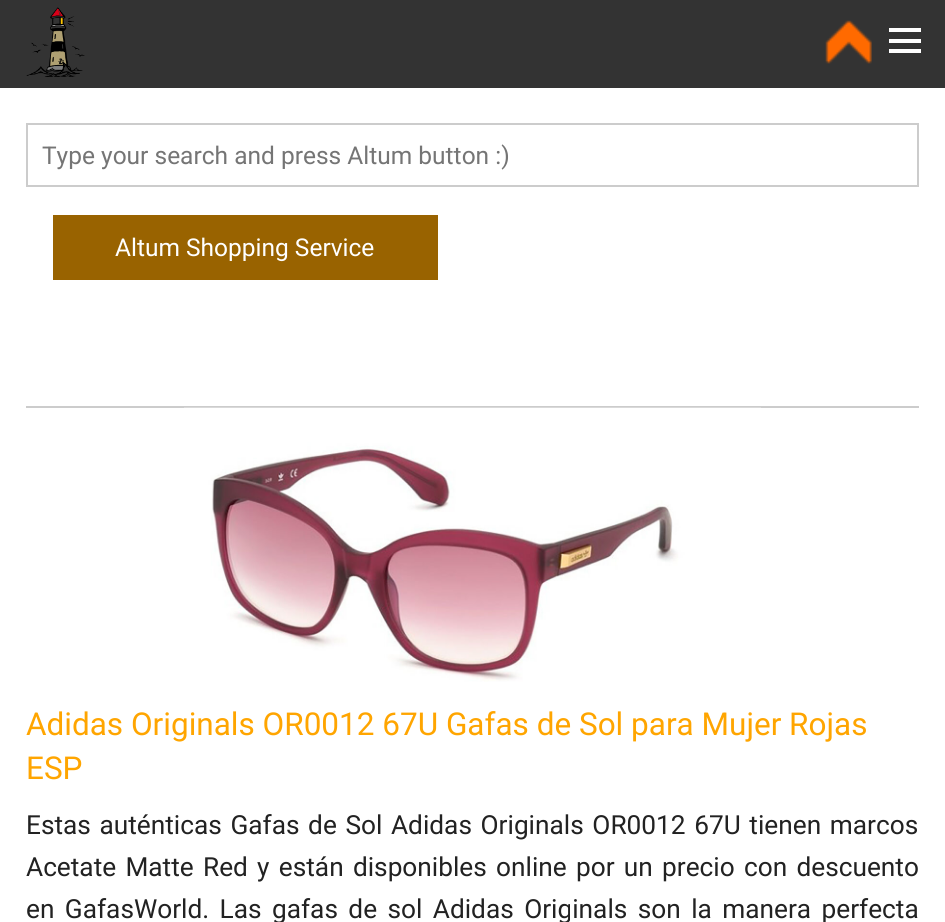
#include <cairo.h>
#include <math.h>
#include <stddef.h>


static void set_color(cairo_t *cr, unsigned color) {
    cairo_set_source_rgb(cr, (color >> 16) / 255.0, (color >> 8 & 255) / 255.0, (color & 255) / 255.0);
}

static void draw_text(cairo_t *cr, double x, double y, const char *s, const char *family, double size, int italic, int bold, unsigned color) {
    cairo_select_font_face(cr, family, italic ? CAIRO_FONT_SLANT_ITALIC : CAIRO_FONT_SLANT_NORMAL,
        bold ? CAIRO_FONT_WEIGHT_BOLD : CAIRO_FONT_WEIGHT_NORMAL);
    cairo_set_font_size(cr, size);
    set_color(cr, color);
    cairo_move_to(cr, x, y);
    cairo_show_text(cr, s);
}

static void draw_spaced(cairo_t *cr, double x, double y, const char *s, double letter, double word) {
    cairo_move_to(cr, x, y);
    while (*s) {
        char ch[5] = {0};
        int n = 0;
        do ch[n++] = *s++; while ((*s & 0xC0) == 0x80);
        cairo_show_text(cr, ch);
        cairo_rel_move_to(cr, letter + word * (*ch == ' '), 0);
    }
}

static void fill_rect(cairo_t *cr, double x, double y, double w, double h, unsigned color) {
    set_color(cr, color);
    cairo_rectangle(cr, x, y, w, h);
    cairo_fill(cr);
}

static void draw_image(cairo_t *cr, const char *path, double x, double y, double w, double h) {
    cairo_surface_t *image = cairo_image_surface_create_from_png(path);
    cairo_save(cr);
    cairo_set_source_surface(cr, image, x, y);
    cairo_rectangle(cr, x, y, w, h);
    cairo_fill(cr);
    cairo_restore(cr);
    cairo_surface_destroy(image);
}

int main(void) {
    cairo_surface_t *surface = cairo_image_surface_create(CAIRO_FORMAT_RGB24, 945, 922);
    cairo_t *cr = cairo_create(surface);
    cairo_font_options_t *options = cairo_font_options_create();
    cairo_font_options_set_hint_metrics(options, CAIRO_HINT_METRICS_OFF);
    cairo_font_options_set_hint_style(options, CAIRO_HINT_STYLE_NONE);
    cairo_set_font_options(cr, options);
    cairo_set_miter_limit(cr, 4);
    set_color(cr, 0xFFFFFF);
    cairo_paint(cr);
    fill_rect(cr, 0, 0, 945, 88, 0x333333);
    draw_image(cr, "assets/img1.png", 26, 7, 59, 70);
    draw_image(cr, "assets/img2.png", 825, 20, 47, 44);
    fill_rect(cr, 889, 49, 32, 4, 0xFFFFFF);
    fill_rect(cr, 889, 39, 32, 4, 0xFFFFFF);
    fill_rect(cr, 889, 28, 32, 4, 0xFFFFFF);
    cairo_rectangle(cr, 27, 124, 891, 62);
    set_color(cr, 0xCCCCCC);
    cairo_stroke(cr);
    draw_text(cr, 42, 164, "Type your search and press Altum button :)", "Roboto", 24.5, 0, 0, 0x757575);
    fill_rect(cr, 53, 215, 385, 65, 0x996300);
    draw_text(cr, 115, 256, "Altum Shopping Service", "Roboto", 24.5, 0, 0, 0xFFFFFF);
    fill_rect(cr, 26, 406, 893, 2, 0xCCCCCC);
    draw_image(cr, "assets/img3.png", 184, 407, 577, 275);
    draw_text(cr, 26, 735, "Adidas Originals OR0012 67U Gafas de Sol para Mujer Rojas", "Roboto", 31.5, 0, 0, 0xFFA500);
    draw_text(cr, 26, 779, "ESP", "Roboto", 31.5, 0, 0, 0xFFA500);
    cairo_set_font_size(cr, 26.25);
    set_color(cr, 0x222222);
    draw_spaced(cr, 26, 834, "Estas auténticas Gafas de Sol Adidas Originals OR0012 67U tienen marcos", 0, 2.1);
    draw_spaced(cr, 26, 876, "Acetate Matte Red y están disponibles online por un precio con descuento", 0, 2.75);
    draw_spaced(cr, 26, 918, "en GafasWorld. Las gafas de sol Adidas Originals son la manera perfecta", 0, 3.9);
    cairo_surface_write_to_png(surface, "output.png");
    cairo_font_options_destroy(options);
    cairo_destroy(cr);
    cairo_surface_destroy(surface);
    return 0;
}
